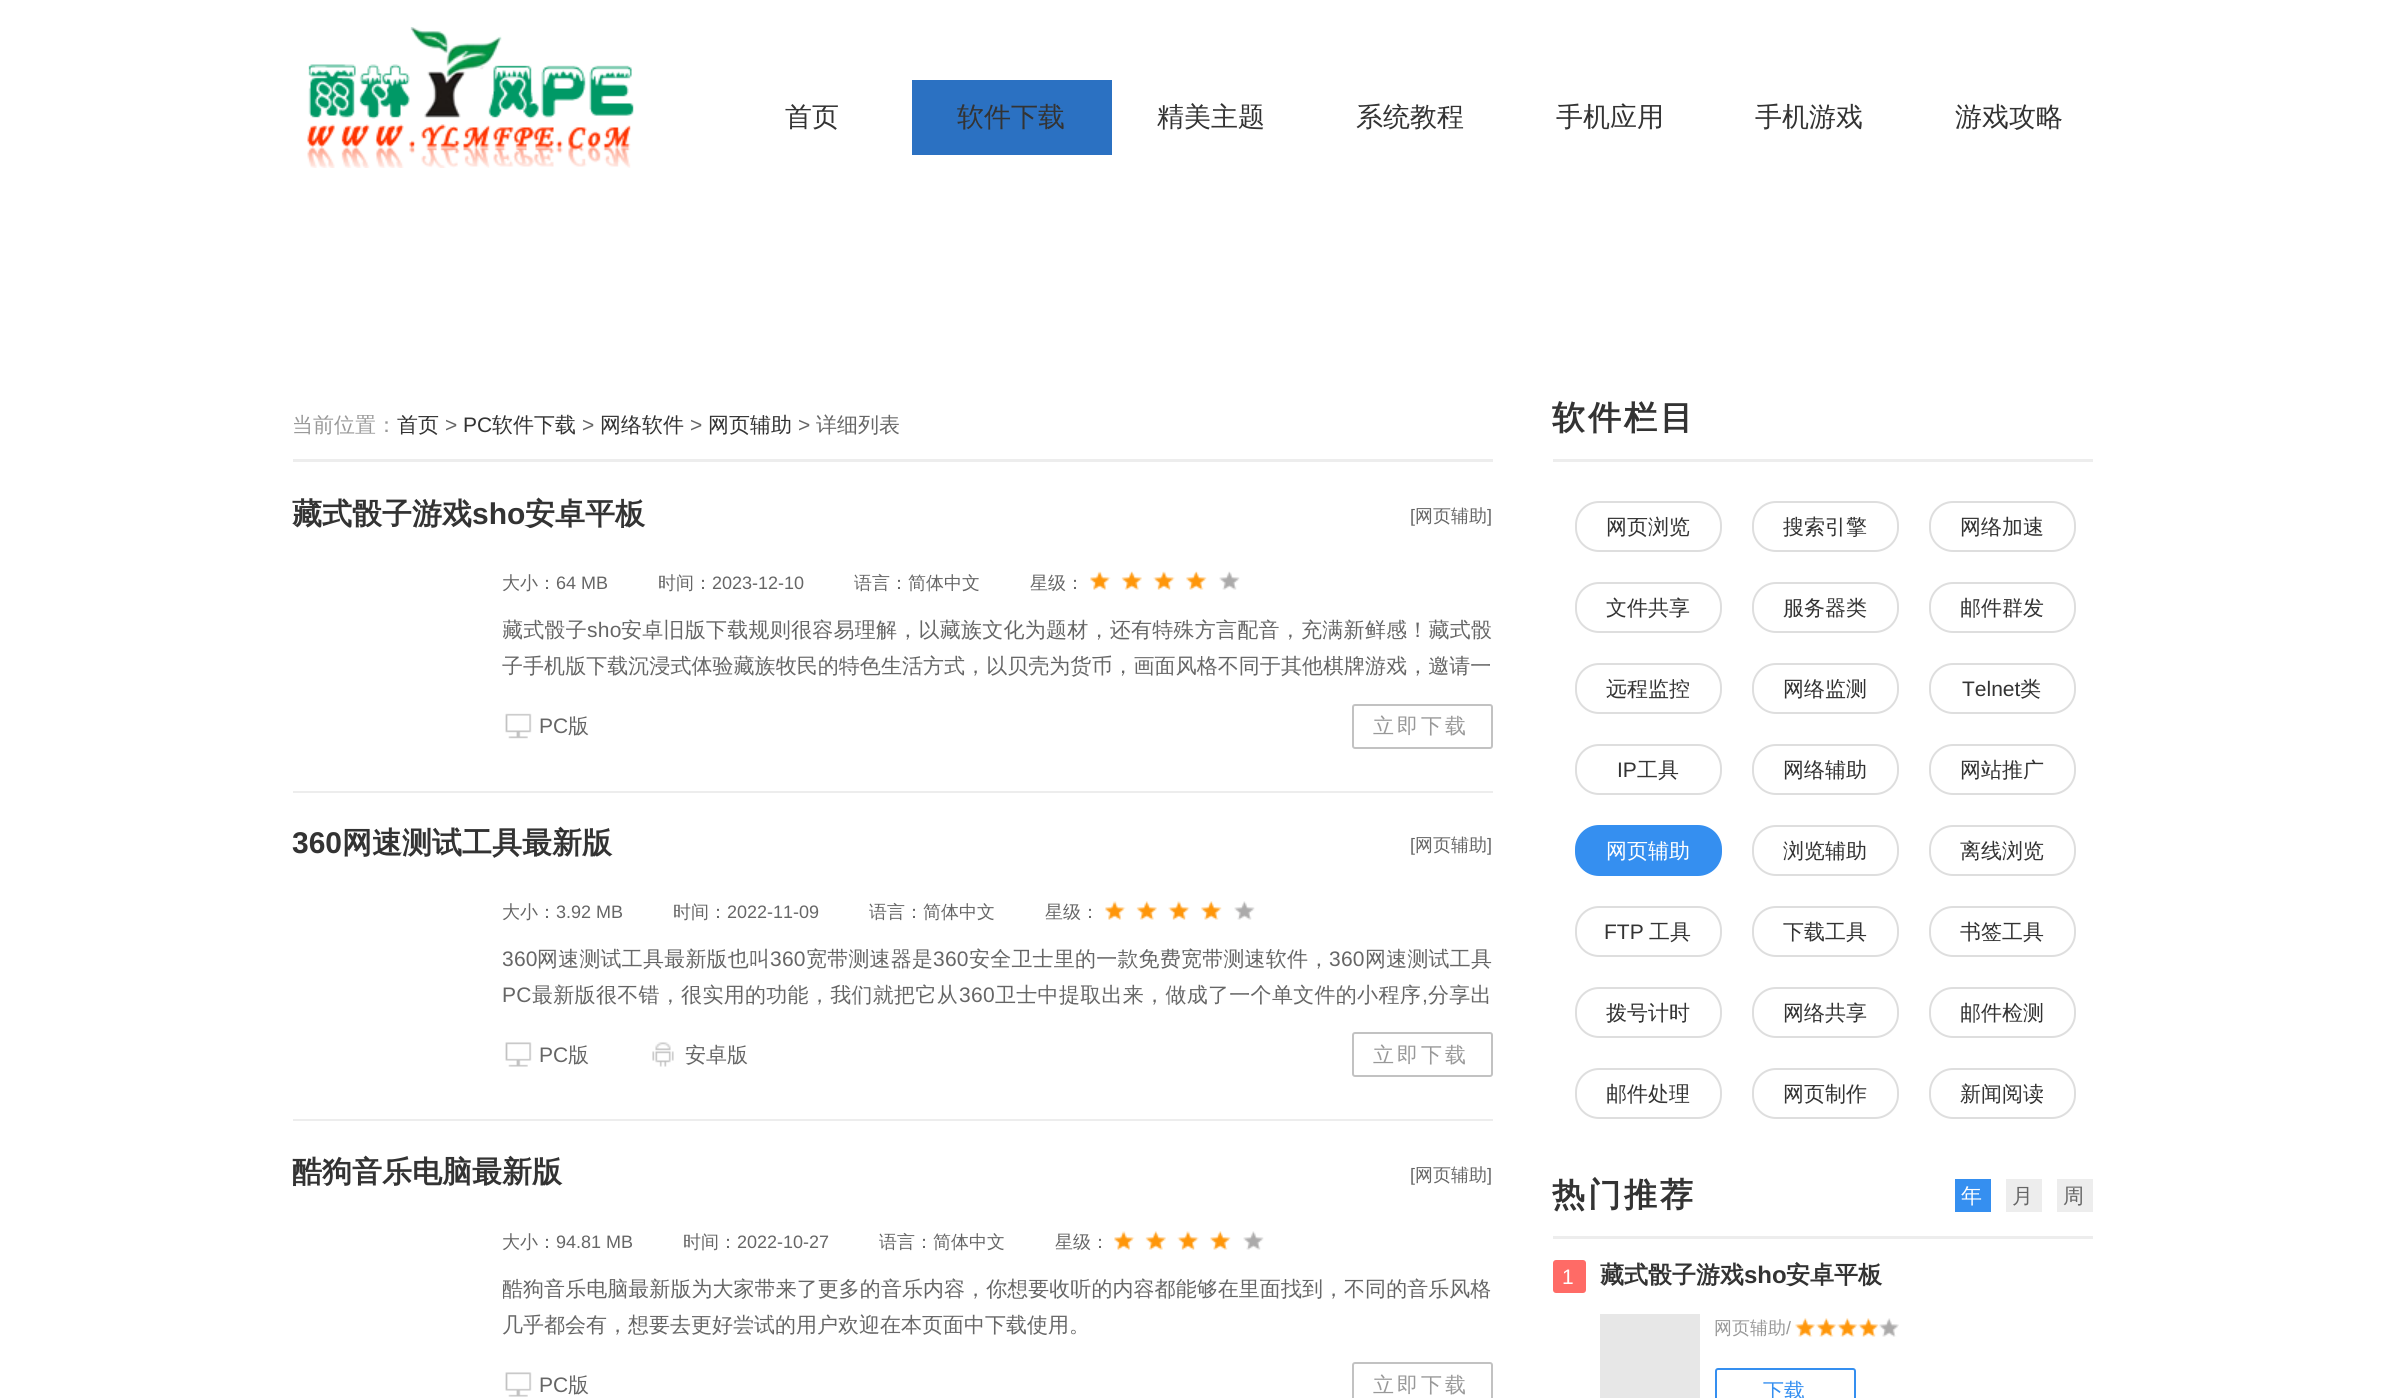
#include <cairo.h>
#include <math.h>
#include <stddef.h>


static void set_color(cairo_t *cr, unsigned color) {
    cairo_set_source_rgb(cr, (color >> 16) / 255.0, (color >> 8 & 255) / 255.0, (color & 255) / 255.0);
}

static void draw_text(cairo_t *cr, double x, double y, const char *s, const char *family, double size, int italic, int bold, unsigned color) {
    cairo_select_font_face(cr, family, italic ? CAIRO_FONT_SLANT_ITALIC : CAIRO_FONT_SLANT_NORMAL,
        bold ? CAIRO_FONT_WEIGHT_BOLD : CAIRO_FONT_WEIGHT_NORMAL);
    cairo_set_font_size(cr, size);
    set_color(cr, color);
    cairo_move_to(cr, x, y);
    cairo_show_text(cr, s);
}

static void draw_spaced(cairo_t *cr, double x, double y, const char *s, double letter, double word) {
    cairo_move_to(cr, x, y);
    while (*s) {
        char ch[5] = {0};
        int n = 0;
        do ch[n++] = *s++; while ((*s & 0xC0) == 0x80);
        cairo_show_text(cr, ch);
        cairo_rel_move_to(cr, letter + word * (*ch == ' '), 0);
    }
}

static void fill_rect(cairo_t *cr, double x, double y, double w, double h, unsigned color) {
    set_color(cr, color);
    cairo_rectangle(cr, x, y, w, h);
    cairo_fill(cr);
}

static void rounded_rect(cairo_t *cr, double x, double y, double w, double h, double r) {
    cairo_new_sub_path(cr);
    cairo_arc(cr, x + w - r, y + h - r, r, 0, M_PI / 2);
    cairo_arc(cr, x + r, y + h - r, r, M_PI / 2, M_PI);
    cairo_arc(cr, x + r, y + r, r, M_PI, 1.5 * M_PI);
    cairo_arc(cr, x + w - r, y + r, r, 1.5 * M_PI, 2 * M_PI);
    cairo_close_path(cr);
}

static void draw_image(cairo_t *cr, const char *path, double x, double y, double w, double h) {
    cairo_surface_t *image = cairo_image_surface_create_from_png(path);
    cairo_save(cr);
    cairo_set_source_surface(cr, image, x, y);
    cairo_rectangle(cr, x, y, w, h);
    cairo_fill(cr);
    cairo_restore(cr);
    cairo_surface_destroy(image);
}

int main(void) {
    cairo_surface_t *surface = cairo_image_surface_create(CAIRO_FORMAT_RGB24, 2383, 1398);
    cairo_t *cr = cairo_create(surface);
    cairo_font_options_t *options = cairo_font_options_create();
    cairo_font_options_set_hint_metrics(options, CAIRO_HINT_METRICS_OFF);
    cairo_font_options_set_hint_style(options, CAIRO_HINT_STYLE_NONE);
    cairo_set_font_options(cr, options);
    cairo_set_miter_limit(cr, 4);
    set_color(cr, 0xFFFFFF);
    cairo_paint(cr);
    draw_image(cr, "assets/img1.png", 307, 27, 327, 141);
    draw_text(cr, 785, 126, "首页", "WenQuanYi Zen Hei Medium", 27, 0, 0, 0x333333);
    fill_rect(cr, 912, 80, 200, 75, 0x2B71C2);
    draw_text(cr, 957, 126, "软件下载", "WenQuanYi Zen Hei Medium", 27, 0, 0, 0x333333);
    draw_text(cr, 1157, 126, "精美主题", "WenQuanYi Zen Hei Medium", 27, 0, 0, 0x333333);
    draw_text(cr, 1356, 126, "系统教程", "WenQuanYi Zen Hei Medium", 27, 0, 0, 0x333333);
    draw_text(cr, 1556, 126, "手机应用", "WenQuanYi Zen Hei Medium", 27, 0, 0, 0x333333);
    draw_text(cr, 1755, 126, "手机游戏", "WenQuanYi Zen Hei Medium", 27, 0, 0, 0x333333);
    draw_text(cr, 1955, 126, "游戏攻略", "WenQuanYi Zen Hei Medium", 27, 0, 0, 0x333333);
    fill_rect(cr, 293, 459, 1200, 3, 0xEDEDED);
    draw_text(cr, 292, 432, "当前位置：", "WenQuanYi Zen Hei Medium", 21, 0, 0, 0x999999);
    draw_text(cr, 397, 432, "首页", "WenQuanYi Zen Hei Medium", 21, 0, 0, 0x333333);
    draw_text(cr, 445, 432, ">", "Liberation Sans", 21, 0, 0, 0x666666);
    draw_text(cr, 463, 432, "PC", "Liberation Sans", 21, 0, 0, 0x333333);
    draw_text(cr, 492, 432, "软件下载", "WenQuanYi Zen Hei Medium", 21, 0, 0, 0x333333);
    draw_text(cr, 582, 432, ">", "Liberation Sans", 21, 0, 0, 0x666666);
    draw_text(cr, 600, 432, "网络软件", "WenQuanYi Zen Hei Medium", 21, 0, 0, 0x333333);
    draw_text(cr, 690, 432, ">", "Liberation Sans", 21, 0, 0, 0x666666);
    draw_text(cr, 708, 432, "网页辅助", "WenQuanYi Zen Hei Medium", 21, 0, 0, 0x333333);
    draw_text(cr, 798, 432, ">", "Liberation Sans", 21, 0, 0, 0x666666);
    draw_text(cr, 816, 432, "详细列表", "WenQuanYi Zen Hei Medium", 21, 0, 0, 0x666666);
    fill_rect(cr, 293, 791, 1200, 2, 0xEDEDED);
    draw_text(cr, 292, 524, "藏式骰子游戏", "WenQuanYi Zen Hei", 30, 0, 1, 0x333333);
    draw_text(cr, 472, 524, "sho", "Liberation Sans", 30, 0, 1, 0x333333);
    draw_text(cr, 525, 524, "安卓平板", "WenQuanYi Zen Hei", 30, 0, 1, 0x333333);
    draw_text(cr, 1410, 522, "[", "Liberation Sans", 18, 0, 0, 0x666666);
    draw_text(cr, 1415, 522, "网页辅助", "WenQuanYi Zen Hei Medium", 18, 0, 0, 0x666666);
    draw_text(cr, 1487, 522, "]", "Liberation Sans", 18, 0, 0, 0x666666);
    draw_text(cr, 502, 589, "大小：", "WenQuanYi Zen Hei Medium", 18, 0, 0, 0x666666);
    draw_text(cr, 556, 589, "64 MB", "Liberation Sans", 18, 0, 0, 0x666666);
    draw_text(cr, 658, 589, "时间：", "WenQuanYi Zen Hei Medium", 18, 0, 0, 0x666666);
    draw_text(cr, 712, 589, "2023-12-10", "Liberation Sans", 18, 0, 0, 0x666666);
    draw_text(cr, 854, 589, "语言：简体中文", "WenQuanYi Zen Hei Medium", 18, 0, 0, 0x666666);
    draw_text(cr, 1030, 589, "星级：", "WenQuanYi Zen Hei Medium", 18, 0, 0, 0x666666);
    draw_image(cr, "assets/img2.png", 1090, 571, 150, 19);
    cairo_save(cr);
    cairo_rectangle(cr, 503, 612, 990, 72);
    cairo_clip(cr);
    cairo_set_font_size(cr, 21);
    draw_spaced(cr, 502, 637, "藏式骰子", 0.25, 0);
    cairo_restore(cr);
    cairo_select_font_face(cr, "Liberation Sans", CAIRO_FONT_SLANT_NORMAL, CAIRO_FONT_WEIGHT_NORMAL);
    cairo_set_font_size(cr, 21);
    draw_spaced(cr, 587, 637, "sho", 0.25, 0);
    cairo_select_font_face(cr, "WenQuanYi Zen Hei Medium", CAIRO_FONT_SLANT_NORMAL, CAIRO_FONT_WEIGHT_NORMAL);
    draw_spaced(cr, 621, 637, "安卓旧版下载规则很容易理解，以藏族文化为题材，还有特殊方言配音，充满新鲜感！藏式骰", 0.25, 0);
    draw_spaced(cr, 502, 673, "子手机版下载沉浸式体验藏族牧民的特色生活方式，以贝壳为货币，画面风格不同于其他棋牌游戏，邀请一", 0.05, 0);
    draw_image(cr, "assets/img3.png", 505, 713, 27, 26);
    draw_text(cr, 539, 733, "PC", "Liberation Sans", 21, 0, 0, 0x666666);
    draw_text(cr, 568, 733, "版", "WenQuanYi Zen Hei Medium", 21, 0, 0, 0x666666);
    rounded_rect(cr, 1353, 705, 139, 43, 2);
    set_color(cr, 0xC2C2C2);
    cairo_stroke(cr);
    set_color(cr, 0x999999);
    draw_spaced(cr, 1373, 733, "立即下载", 3, 0);
    fill_rect(cr, 293, 1119, 1200, 2, 0xEDEDED);
    draw_text(cr, 292, 853, "360", "Liberation Sans", 30, 0, 1, 0x333333);
    draw_text(cr, 342, 853, "网速测试工具最新版", "WenQuanYi Zen Hei", 30, 0, 1, 0x333333);
    draw_text(cr, 1410, 851, "[", "Liberation Sans", 18, 0, 0, 0x666666);
    draw_text(cr, 1415, 851, "网页辅助", "WenQuanYi Zen Hei Medium", 18, 0, 0, 0x666666);
    draw_text(cr, 1487, 851, "]", "Liberation Sans", 18, 0, 0, 0x666666);
    draw_text(cr, 502, 918, "大小：", "WenQuanYi Zen Hei Medium", 18, 0, 0, 0x666666);
    draw_text(cr, 556, 918, "3.92 MB", "Liberation Sans", 18, 0, 0, 0x666666);
    draw_text(cr, 673, 918, "时间：", "WenQuanYi Zen Hei Medium", 18, 0, 0, 0x666666);
    draw_text(cr, 727, 918, "2022-11-09", "Liberation Sans", 18, 0, 0, 0x666666);
    draw_text(cr, 869, 918, "语言：简体中文", "WenQuanYi Zen Hei Medium", 18, 0, 0, 0x666666);
    draw_text(cr, 1045, 918, "星级：", "WenQuanYi Zen Hei Medium", 18, 0, 0, 0x666666);
    draw_image(cr, "assets/img4.png", 1105, 901, 150, 19);
    cairo_save(cr);
    cairo_rectangle(cr, 503, 941, 990, 72);
    cairo_clip(cr);
    cairo_select_font_face(cr, "Liberation Sans", CAIRO_FONT_SLANT_NORMAL, CAIRO_FONT_WEIGHT_NORMAL);
    cairo_set_font_size(cr, 21);
    draw_spaced(cr, 502, 966, "360", 0.2, 0);
    cairo_restore(cr);
    cairo_set_font_size(cr, 21);
    draw_spaced(cr, 537, 966, "网速测试工具最新版也叫", 0.2, 0);
    cairo_select_font_face(cr, "Liberation Sans", CAIRO_FONT_SLANT_NORMAL, CAIRO_FONT_WEIGHT_NORMAL);
    draw_spaced(cr, 770, 966, "360", 0.2, 0);
    cairo_select_font_face(cr, "WenQuanYi Zen Hei Medium", CAIRO_FONT_SLANT_NORMAL, CAIRO_FONT_WEIGHT_NORMAL);
    draw_spaced(cr, 806, 966, "宽带测速器是", 0.2, 0);
    cairo_select_font_face(cr, "Liberation Sans", CAIRO_FONT_SLANT_NORMAL, CAIRO_FONT_WEIGHT_NORMAL);
    draw_spaced(cr, 933, 966, "360", 0.2, 0);
    cairo_select_font_face(cr, "WenQuanYi Zen Hei Medium", CAIRO_FONT_SLANT_NORMAL, CAIRO_FONT_WEIGHT_NORMAL);
    draw_spaced(cr, 969, 966, "安全卫士里的一款免费宽带测速软件，", 0.2, 0);
    cairo_select_font_face(cr, "Liberation Sans", CAIRO_FONT_SLANT_NORMAL, CAIRO_FONT_WEIGHT_NORMAL);
    draw_spaced(cr, 1329, 966, "360", 0.2, 0);
    cairo_select_font_face(cr, "WenQuanYi Zen Hei Medium", CAIRO_FONT_SLANT_NORMAL, CAIRO_FONT_WEIGHT_NORMAL);
    draw_spaced(cr, 1365, 966, "网速测试工具", 0.2, 0);
    cairo_select_font_face(cr, "Liberation Sans", CAIRO_FONT_SLANT_NORMAL, CAIRO_FONT_WEIGHT_NORMAL);
    draw_spaced(cr, 502, 1002, "PC", 0.3, 0);
    cairo_select_font_face(cr, "WenQuanYi Zen Hei Medium", CAIRO_FONT_SLANT_NORMAL, CAIRO_FONT_WEIGHT_NORMAL);
    draw_spaced(cr, 532, 1002, "最新版很不错，很实用的功能，我们就把它从", 0.3, 0);
    cairo_select_font_face(cr, "Liberation Sans", CAIRO_FONT_SLANT_NORMAL, CAIRO_FONT_WEIGHT_NORMAL);
    draw_spaced(cr, 959, 1002, "360", 0.3, 0);
    cairo_select_font_face(cr, "WenQuanYi Zen Hei Medium", CAIRO_FONT_SLANT_NORMAL, CAIRO_FONT_WEIGHT_NORMAL);
    draw_spaced(cr, 995, 1002, "卫士中提取出来，做成了一个单文件的小程序", 0.3, 0);
    cairo_select_font_face(cr, "Liberation Sans", CAIRO_FONT_SLANT_NORMAL, CAIRO_FONT_WEIGHT_NORMAL);
    draw_spaced(cr, 1422, 1002, ",", 0.3, 0);
    cairo_select_font_face(cr, "WenQuanYi Zen Hei Medium", CAIRO_FONT_SLANT_NORMAL, CAIRO_FONT_WEIGHT_NORMAL);
    draw_spaced(cr, 1428, 1002, "分享出", 0.3, 0);
    draw_image(cr, "assets/img5.png", 505, 1042, 27, 25);
    draw_text(cr, 539, 1062, "PC", "Liberation Sans", 21, 0, 0, 0x666666);
    draw_text(cr, 568, 1062, "版", "WenQuanYi Zen Hei Medium", 21, 0, 0, 0x666666);
    draw_image(cr, "assets/img6.png", 652, 1042, 22, 25);
    draw_text(cr, 685, 1062, "安卓版", "WenQuanYi Zen Hei Medium", 21, 0, 0, 0x666666);
    rounded_rect(cr, 1353, 1033, 139, 43, 2);
    set_color(cr, 0xC2C2C2);
    cairo_stroke(cr);
    set_color(cr, 0x999999);
    draw_spaced(cr, 1373, 1062, "立即下载", 3, 0);
    draw_text(cr, 292, 1182, "酷狗音乐电脑最新版", "WenQuanYi Zen Hei", 30, 0, 1, 0x333333);
    draw_text(cr, 1410, 1181, "[", "Liberation Sans", 18, 0, 0, 0x666666);
    draw_text(cr, 1415, 1181, "网页辅助", "WenQuanYi Zen Hei Medium", 18, 0, 0, 0x666666);
    draw_text(cr, 1487, 1181, "]", "Liberation Sans", 18, 0, 0, 0x666666);
    draw_text(cr, 502, 1248, "大小：", "WenQuanYi Zen Hei Medium", 18, 0, 0, 0x666666);
    draw_text(cr, 556, 1248, "94.81 MB", "Liberation Sans", 18, 0, 0, 0x666666);
    draw_text(cr, 683, 1248, "时间：", "WenQuanYi Zen Hei Medium", 18, 0, 0, 0x666666);
    draw_text(cr, 737, 1248, "2022-10-27", "Liberation Sans", 18, 0, 0, 0x666666);
    draw_text(cr, 879, 1248, "语言：简体中文", "WenQuanYi Zen Hei Medium", 18, 0, 0, 0x666666);
    draw_text(cr, 1055, 1248, "星级：", "WenQuanYi Zen Hei Medium", 18, 0, 0, 0x666666);
    draw_image(cr, "assets/img7.png", 1114, 1231, 150, 19);
    cairo_save(cr);
    cairo_rectangle(cr, 503, 1271, 990, 72);
    cairo_clip(cr);
    cairo_set_font_size(cr, 21);
    draw_spaced(cr, 502, 1296, "酷狗音乐电脑最新版为大家带来了更多的音乐内容，你想要收听的内容都能够在里面找到，不同的音乐风格", 0.05, 0);
    cairo_restore(cr);
    draw_text(cr, 502, 1332, "几乎都会有，想要去更好尝试的用户欢迎在本页面中下载使用。", "WenQuanYi Zen Hei Medium", 21, 0, 0, 0x666666);
    draw_image(cr, "assets/img5.png", 505, 1372, 27, 25);
    draw_text(cr, 539, 1392, "PC", "Liberation Sans", 21, 0, 0, 0x666666);
    draw_text(cr, 568, 1392, "版", "WenQuanYi Zen Hei Medium", 21, 0, 0, 0x666666);
    rounded_rect(cr, 1353, 1363, 139, 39, 2);
    set_color(cr, 0xC2C2C2);
    cairo_stroke(cr);
    set_color(cr, 0x999999);
    draw_spaced(cr, 1373, 1392, "立即下载", 3, 0);
    fill_rect(cr, 1553, 459, 540, 3, 0xEDEDED);
    cairo_select_font_face(cr, "WenQuanYi Zen Hei", CAIRO_FONT_SLANT_NORMAL, CAIRO_FONT_WEIGHT_BOLD);
    cairo_set_font_size(cr, 33);
    set_color(cr, 0x333333);
    draw_spaced(cr, 1552, 429, "软件栏目", 3, 0);
    rounded_rect(cr, 1576, 502, 145, 49, 23);
    set_color(cr, 0xDEDEDE);
    cairo_stroke(cr);
    draw_text(cr, 1606, 534, "网页浏览", "WenQuanYi Zen Hei Medium", 21, 0, 0, 0x333333);
    rounded_rect(cr, 1753, 502, 145, 49, 23);
    set_color(cr, 0xDEDEDE);
    cairo_stroke(cr);
    draw_text(cr, 1783, 534, "搜索引擎", "WenQuanYi Zen Hei Medium", 21, 0, 0, 0x333333);
    rounded_rect(cr, 1930, 502, 145, 49, 23);
    set_color(cr, 0xDEDEDE);
    cairo_stroke(cr);
    draw_text(cr, 1960, 534, "网络加速", "WenQuanYi Zen Hei Medium", 21, 0, 0, 0x333333);
    rounded_rect(cr, 1576, 583, 145, 49, 23);
    set_color(cr, 0xDEDEDE);
    cairo_stroke(cr);
    draw_text(cr, 1606, 615, "文件共享", "WenQuanYi Zen Hei Medium", 21, 0, 0, 0x333333);
    rounded_rect(cr, 1753, 583, 145, 49, 23);
    set_color(cr, 0xDEDEDE);
    cairo_stroke(cr);
    draw_text(cr, 1783, 615, "服务器类", "WenQuanYi Zen Hei Medium", 21, 0, 0, 0x333333);
    rounded_rect(cr, 1930, 583, 145, 49, 23);
    set_color(cr, 0xDEDEDE);
    cairo_stroke(cr);
    draw_text(cr, 1960, 615, "邮件群发", "WenQuanYi Zen Hei Medium", 21, 0, 0, 0x333333);
    rounded_rect(cr, 1576, 664, 145, 49, 23);
    set_color(cr, 0xDEDEDE);
    cairo_stroke(cr);
    draw_text(cr, 1606, 696, "远程监控", "WenQuanYi Zen Hei Medium", 21, 0, 0, 0x333333);
    rounded_rect(cr, 1753, 664, 145, 49, 23);
    set_color(cr, 0xDEDEDE);
    cairo_stroke(cr);
    draw_text(cr, 1783, 696, "网络监测", "WenQuanYi Zen Hei Medium", 21, 0, 0, 0x333333);
    rounded_rect(cr, 1930, 664, 145, 49, 23);
    set_color(cr, 0xDEDEDE);
    cairo_stroke(cr);
    draw_text(cr, 1962, 696, "Telnet", "Liberation Sans", 21, 0, 0, 0x333333);
    draw_text(cr, 2020, 696, "类", "WenQuanYi Zen Hei Medium", 21, 0, 0, 0x333333);
    rounded_rect(cr, 1576, 745, 145, 49, 23);
    set_color(cr, 0xDEDEDE);
    cairo_stroke(cr);
    draw_text(cr, 1617, 777, "IP", "Liberation Sans", 21, 0, 0, 0x333333);
    draw_text(cr, 1637, 777, "工具", "WenQuanYi Zen Hei Medium", 21, 0, 0, 0x333333);
    rounded_rect(cr, 1753, 745, 145, 49, 23);
    set_color(cr, 0xDEDEDE);
    cairo_stroke(cr);
    draw_text(cr, 1783, 777, "网络辅助", "WenQuanYi Zen Hei Medium", 21, 0, 0, 0x333333);
    rounded_rect(cr, 1930, 745, 145, 49, 23);
    set_color(cr, 0xDEDEDE);
    cairo_stroke(cr);
    draw_text(cr, 1960, 777, "网站推广", "WenQuanYi Zen Hei Medium", 21, 0, 0, 0x333333);
    set_color(cr, 0x358FF0);
    rounded_rect(cr, 1576, 826, 145, 49, 23);
    cairo_fill_preserve(cr);
    cairo_stroke(cr);
    draw_text(cr, 1606, 858, "网页辅助", "WenQuanYi Zen Hei Medium", 21, 0, 0, 0xFFFFFF);
    rounded_rect(cr, 1753, 826, 145, 49, 23);
    set_color(cr, 0xDEDEDE);
    cairo_stroke(cr);
    draw_text(cr, 1783, 858, "浏览辅助", "WenQuanYi Zen Hei Medium", 21, 0, 0, 0x333333);
    rounded_rect(cr, 1930, 826, 145, 49, 23);
    set_color(cr, 0xDEDEDE);
    cairo_stroke(cr);
    draw_text(cr, 1960, 858, "离线浏览", "WenQuanYi Zen Hei Medium", 21, 0, 0, 0x333333);
    rounded_rect(cr, 1576, 907, 145, 49, 23);
    set_color(cr, 0xDEDEDE);
    cairo_stroke(cr);
    draw_text(cr, 1604, 939, "FTP", "Liberation Sans", 21, 0, 0, 0x333333);
    draw_text(cr, 1649, 939, "工具", "WenQuanYi Zen Hei Medium", 21, 0, 0, 0x333333);
    rounded_rect(cr, 1753, 907, 145, 49, 23);
    set_color(cr, 0xDEDEDE);
    cairo_stroke(cr);
    draw_text(cr, 1783, 939, "下载工具", "WenQuanYi Zen Hei Medium", 21, 0, 0, 0x333333);
    rounded_rect(cr, 1930, 907, 145, 49, 23);
    set_color(cr, 0xDEDEDE);
    cairo_stroke(cr);
    draw_text(cr, 1960, 939, "书签工具", "WenQuanYi Zen Hei Medium", 21, 0, 0, 0x333333);
    rounded_rect(cr, 1576, 988, 145, 49, 23);
    set_color(cr, 0xDEDEDE);
    cairo_stroke(cr);
    draw_text(cr, 1606, 1020, "拨号计时", "WenQuanYi Zen Hei Medium", 21, 0, 0, 0x333333);
    rounded_rect(cr, 1753, 988, 145, 49, 23);
    set_color(cr, 0xDEDEDE);
    cairo_stroke(cr);
    draw_text(cr, 1783, 1020, "网络共享", "WenQuanYi Zen Hei Medium", 21, 0, 0, 0x333333);
    rounded_rect(cr, 1930, 988, 145, 49, 23);
    set_color(cr, 0xDEDEDE);
    cairo_stroke(cr);
    draw_text(cr, 1960, 1020, "邮件检测", "WenQuanYi Zen Hei Medium", 21, 0, 0, 0x333333);
    rounded_rect(cr, 1576, 1069, 145, 49, 23);
    set_color(cr, 0xDEDEDE);
    cairo_stroke(cr);
    draw_text(cr, 1606, 1101, "邮件处理", "WenQuanYi Zen Hei Medium", 21, 0, 0, 0x333333);
    rounded_rect(cr, 1753, 1069, 145, 49, 23);
    set_color(cr, 0xDEDEDE);
    cairo_stroke(cr);
    draw_text(cr, 1783, 1101, "网页制作", "WenQuanYi Zen Hei Medium", 21, 0, 0, 0x333333);
    rounded_rect(cr, 1930, 1069, 145, 49, 23);
    set_color(cr, 0xDEDEDE);
    cairo_stroke(cr);
    draw_text(cr, 1960, 1101, "新闻阅读", "WenQuanYi Zen Hei Medium", 21, 0, 0, 0x333333);
    fill_rect(cr, 1553, 1236, 540, 3, 0xEDEDED);
    cairo_select_font_face(cr, "WenQuanYi Zen Hei", CAIRO_FONT_SLANT_NORMAL, CAIRO_FONT_WEIGHT_BOLD);
    cairo_set_font_size(cr, 33);
    set_color(cr, 0x333333);
    draw_spaced(cr, 1552, 1206, "热门推荐", 3, 0);
    fill_rect(cr, 1955, 1179, 36, 33, 0x358FF0);
    draw_text(cr, 1961, 1203, "年", "WenQuanYi Zen Hei Medium", 21, 0, 0, 0xFFFFFF);
    fill_rect(cr, 2006, 1179, 36, 33, 0xEDEDED);
    draw_text(cr, 2012, 1203, "月", "WenQuanYi Zen Hei Medium", 21, 0, 0, 0x666666);
    fill_rect(cr, 2057, 1179, 36, 33, 0xEDEDED);
    draw_text(cr, 2063, 1203, "周", "WenQuanYi Zen Hei Medium", 21, 0, 0, 0x666666);
    set_color(cr, 0xFF6B66);
    rounded_rect(cr, 1553, 1260, 33, 33, 3);
    cairo_fill(cr);
    draw_text(cr, 1562, 1284, "1", "Liberation Sans", 21, 0, 0, 0xFFFFFF);
    draw_text(cr, 1600, 1283, "藏式骰子游戏", "WenQuanYi Zen Hei", 24, 0, 1, 0x333333);
    draw_text(cr, 1744, 1283, "sho", "Liberation Sans", 24, 0, 1, 0x333333);
    draw_text(cr, 1786, 1283, "安卓平板", "WenQuanYi Zen Hei", 24, 0, 1, 0x333333);
    fill_rect(cr, 1600, 1314, 100, 84, 0xE7E7E7);
    draw_text(cr, 1714, 1334, "网页辅助", "WenQuanYi Zen Hei Medium", 18, 0, 0, 0x999999);
    draw_text(cr, 1786, 1334, "/", "Liberation Sans", 18, 0, 0, 0x999999);
    draw_image(cr, "assets/img8.png", 1795, 1318, 104, 19);
    rounded_rect(cr, 1716, 1369, 139, 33, 2);
    set_color(cr, 0x358FF0);
    cairo_stroke(cr);
    draw_text(cr, 1763, 1398, "下载", "WenQuanYi Zen Hei Medium", 21, 0, 0, 0x358FF0);
    cairo_surface_write_to_png(surface, "output.png");
    cairo_font_options_destroy(options);
    cairo_destroy(cr);
    cairo_surface_destroy(surface);
    return 0;
}
